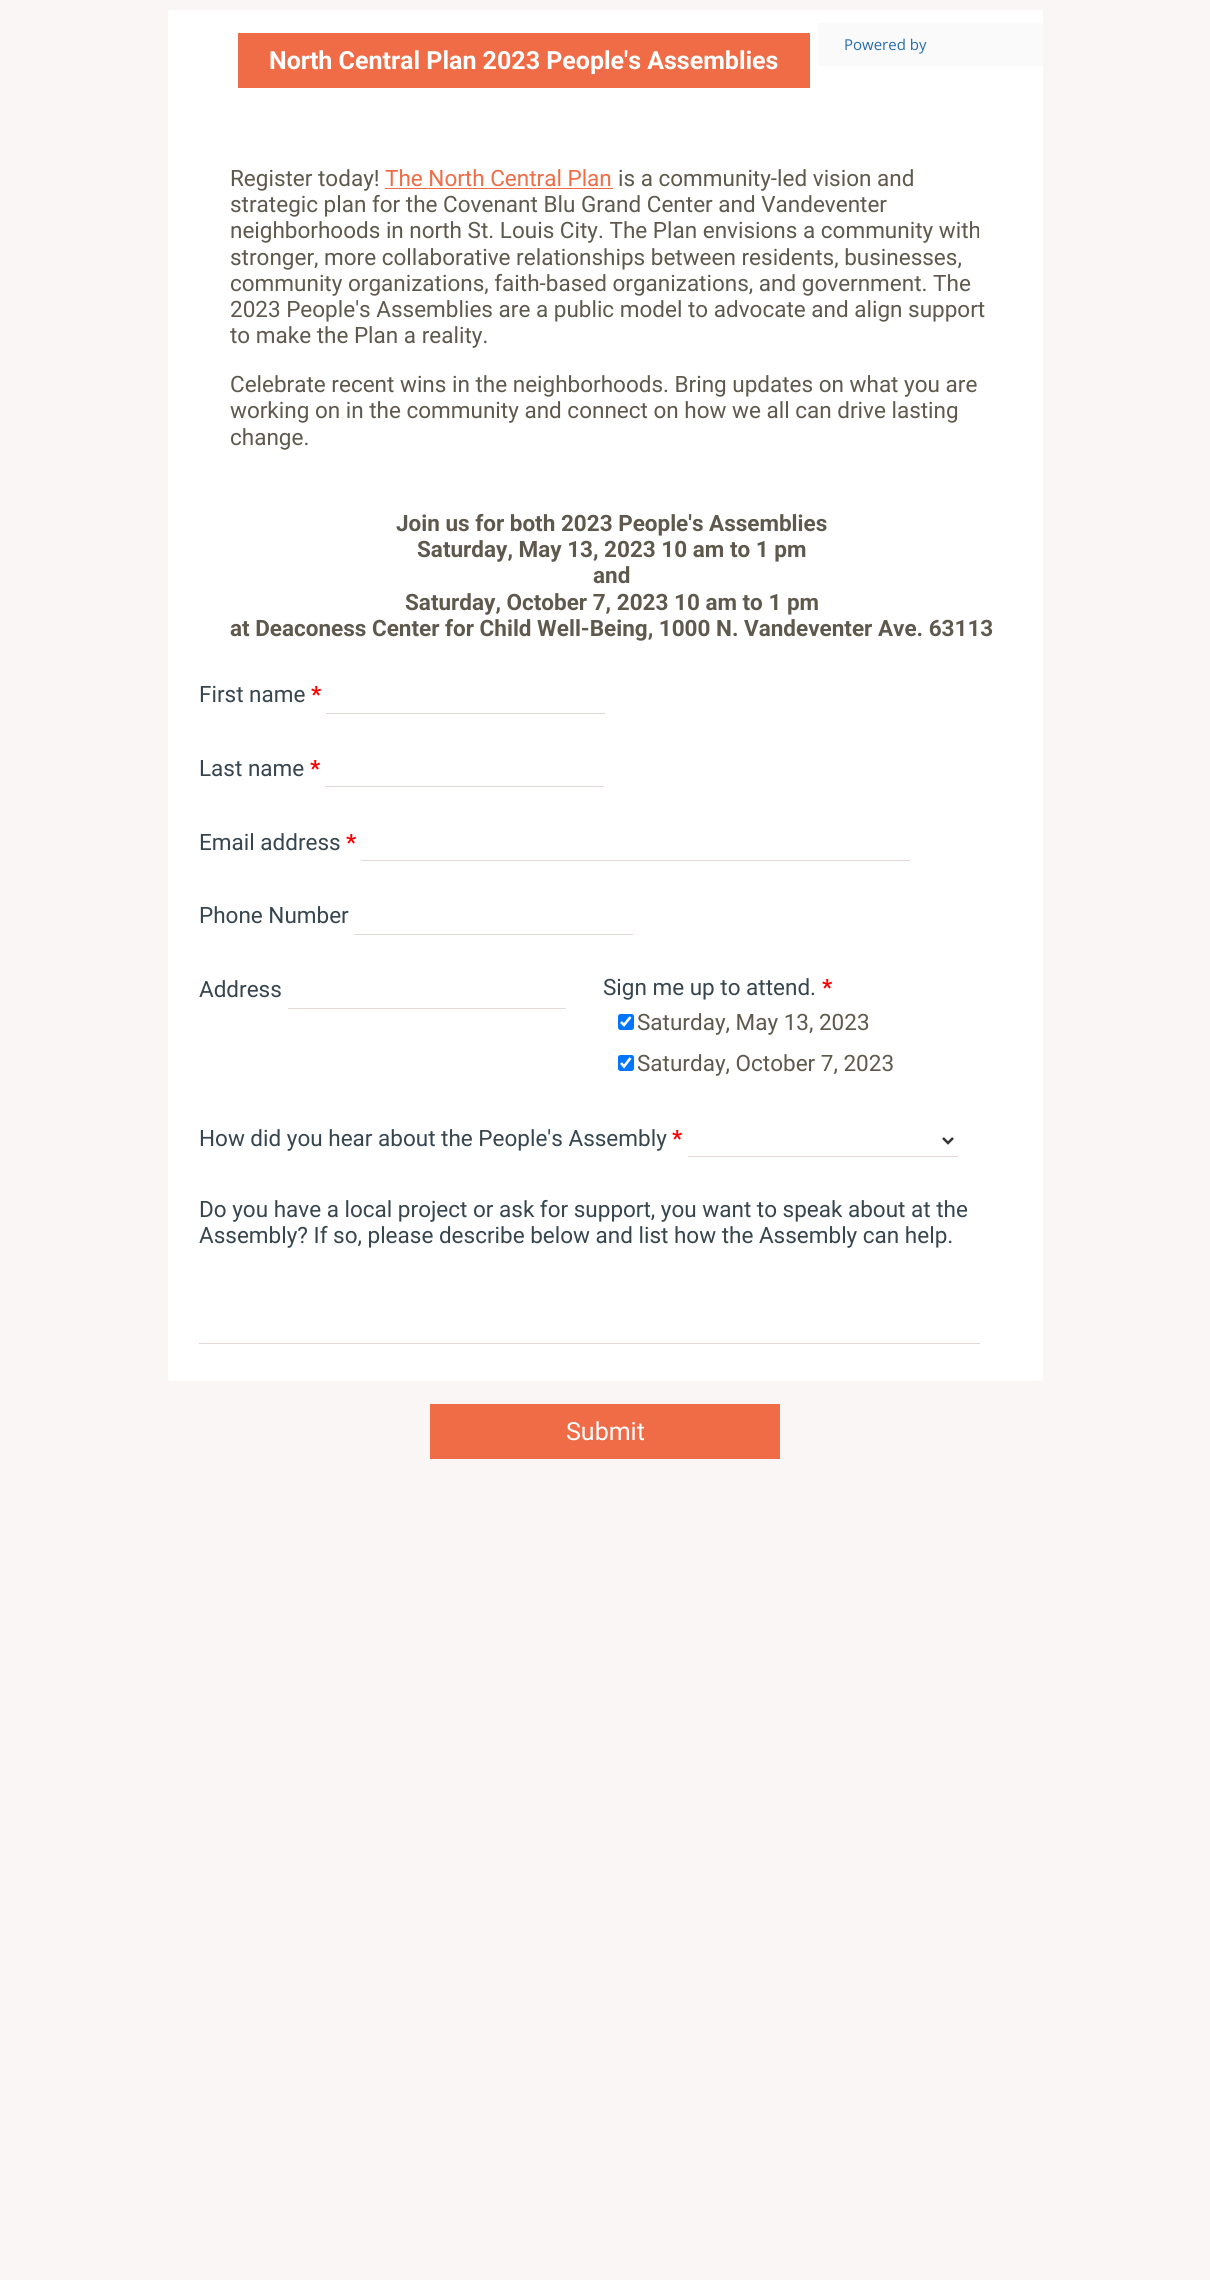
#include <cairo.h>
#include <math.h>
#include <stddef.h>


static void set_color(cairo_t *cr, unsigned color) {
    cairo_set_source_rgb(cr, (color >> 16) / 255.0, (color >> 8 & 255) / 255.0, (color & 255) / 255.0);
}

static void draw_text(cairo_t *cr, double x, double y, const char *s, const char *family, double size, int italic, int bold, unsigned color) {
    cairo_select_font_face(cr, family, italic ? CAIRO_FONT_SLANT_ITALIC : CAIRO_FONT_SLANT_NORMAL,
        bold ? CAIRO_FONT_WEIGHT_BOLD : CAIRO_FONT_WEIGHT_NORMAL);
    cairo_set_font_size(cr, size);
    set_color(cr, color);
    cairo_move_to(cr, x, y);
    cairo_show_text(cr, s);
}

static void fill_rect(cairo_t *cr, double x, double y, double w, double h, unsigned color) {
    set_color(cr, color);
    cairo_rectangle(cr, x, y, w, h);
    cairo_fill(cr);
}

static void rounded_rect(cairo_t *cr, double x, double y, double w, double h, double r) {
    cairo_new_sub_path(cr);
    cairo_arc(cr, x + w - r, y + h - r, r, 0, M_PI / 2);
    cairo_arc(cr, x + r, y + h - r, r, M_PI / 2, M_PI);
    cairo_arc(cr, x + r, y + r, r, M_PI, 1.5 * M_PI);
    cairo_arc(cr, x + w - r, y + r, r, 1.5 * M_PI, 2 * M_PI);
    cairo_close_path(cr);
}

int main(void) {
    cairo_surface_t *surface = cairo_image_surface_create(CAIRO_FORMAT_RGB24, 1210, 2280);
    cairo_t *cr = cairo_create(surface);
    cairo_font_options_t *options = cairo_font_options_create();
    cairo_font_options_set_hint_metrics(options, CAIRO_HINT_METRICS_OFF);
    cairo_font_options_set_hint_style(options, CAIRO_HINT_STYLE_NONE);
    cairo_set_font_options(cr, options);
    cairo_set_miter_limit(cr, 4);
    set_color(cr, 0xFAF6F5);
    cairo_paint(cr);
    set_color(cr, 0xFFFFFF);
    rounded_rect(cr, 168, 10, 875, 1371, 2.5);
    cairo_fill(cr);
    fill_rect(cr, 818, 23, 225, 43, 0xFAFAFA);
    draw_text(cr, 844, 50, "Powered by", "Open Sans", 15, 0, 0, 0x266CAE);
    fill_rect(cr, 238, 33, 572, 55, 0xEF6C47);
    draw_text(cr, 269, 69, "North Central Plan 2023 People's Assemblies", "Roboto", 25, 0, 1, 0xFFFFFF);
    draw_text(cr, 230, 186, "Register today!", "Roboto", 22.5, 0, 0, 0x5F594D);
    draw_text(cr, 385, 186, "The North Central Plan", "Roboto", 22.5, 0, 0, 0xEF6C47);
    fill_rect(cr, 385, 188, 228, 1, 0xEF6C47);
    draw_text(cr, 618, 186, "is a community-led vision and", "Roboto", 22.5, 0, 0, 0x5F594D);
    draw_text(cr, 230, 212, "strategic plan for the Covenant Blu Grand Center and Vandeventer", "Roboto", 22.5, 0, 0, 0x5F594D);
    draw_text(cr, 230, 238, "neighborhoods in north St. Louis City. The Plan envisions a community with", "Roboto", 22.5, 0, 0, 0x5F594D);
    draw_text(cr, 230, 265, "stronger, more collaborative relationships between residents, businesses,", "Roboto", 22.5, 0, 0, 0x5F594D);
    draw_text(cr, 230, 291, "community organizations, faith-based organizations, and government. The", "Roboto", 22.5, 0, 0, 0x5F594D);
    draw_text(cr, 230, 317, "2023 People's Assemblies are a public model to advocate and align support", "Roboto", 22.5, 0, 0, 0x5F594D);
    draw_text(cr, 230, 343, "to make the Plan a reality.", "Roboto", 22.5, 0, 0, 0x5F594D);
    draw_text(cr, 230, 392, "Celebrate recent wins in the neighborhoods. Bring updates on what you are", "Roboto", 22.5, 0, 0, 0x5F594D);
    draw_text(cr, 230, 418, "working on in the community and connect on how we all can drive lasting", "Roboto", 22.5, 0, 0, 0x5F594D);
    draw_text(cr, 230, 445, "change.", "Roboto", 22.5, 0, 0, 0x5F594D);
    draw_text(cr, 396, 531, "Join us for both 2023 People's Assemblies", "Roboto", 22.5, 0, 1, 0x5F594D);
    draw_text(cr, 417, 557, "Saturday, May 13, 2023 10 am to 1 pm", "Roboto", 22.5, 0, 1, 0x5F594D);
    draw_text(cr, 593, 583, "and", "Roboto", 22.5, 0, 1, 0x5F594D);
    draw_text(cr, 405, 610, "Saturday, October 7, 2023 10 am to 1 pm", "Roboto", 22.5, 0, 1, 0x5F594D);
    draw_text(cr, 230, 636, "at Deaconess Center for Child Well-Being, 1000 N. Vandeventer Ave. 63113", "Roboto", 22.5, 0, 1, 0x5F594D);
    draw_text(cr, 199, 702, "First name", "Roboto", 22.5, 0, 0, 0x36454E);
    draw_text(cr, 311, 702, "*", "Roboto", 22.5, 0, 1, 0xFF0000);
    fill_rect(cr, 326, 713, 279, 1, 0xE3DAD8);
    draw_text(cr, 199, 776, "Last name", "Roboto", 22.5, 0, 0, 0x36454E);
    draw_text(cr, 310, 776, "*", "Roboto", 22.5, 0, 1, 0xFF0000);
    fill_rect(cr, 325, 786, 279, 1, 0xE3DAD8);
    draw_text(cr, 199, 850, "Email address", "Roboto", 22.5, 0, 0, 0x36454E);
    draw_text(cr, 346, 850, "*", "Roboto", 22.5, 0, 1, 0xFF0000);
    fill_rect(cr, 361, 860, 549, 1, 0xE3DAD8);
    draw_text(cr, 199, 923, "Phone Number", "Roboto", 22.5, 0, 0, 0x36454E);
    fill_rect(cr, 354, 934, 279, 1, 0xE3DAD8);
    draw_text(cr, 199, 997, "Address", "Roboto", 22.5, 0, 0, 0x36454E);
    fill_rect(cr, 288, 1008, 278, 1, 0xE3DAD8);
    draw_text(cr, 603, 995, "Sign me up to attend.", "Roboto", 22.5, 0, 0, 0x36454E);
    draw_text(cr, 822, 995, "*", "Roboto", 22.5, 0, 1, 0xFF0000);
    set_color(cr, 0x0075FF);
    rounded_rect(cr, 618, 1014, 16, 16, 2.5);
    cairo_fill(cr);
    cairo_new_path(cr);
    cairo_move_to(cr, 621, 1022);
    cairo_line_to(cr, 624, 1025);
    cairo_line_to(cr, 630.5, 1017);
    set_color(cr, 0xFFFFFF);
    cairo_set_line_width(cr, 2.6);
    cairo_stroke(cr);
    draw_text(cr, 637, 1030, "Saturday, May 13, 2023", "Roboto", 22.5, 0, 0, 0x5F594D);
    set_color(cr, 0x0075FF);
    rounded_rect(cr, 618, 1055, 16, 16, 2.5);
    cairo_fill(cr);
    cairo_new_path(cr);
    cairo_move_to(cr, 621, 1063);
    cairo_line_to(cr, 624, 1066.5);
    cairo_line_to(cr, 630.5, 1058);
    set_color(cr, 0xFFFFFF);
    cairo_stroke(cr);
    draw_text(cr, 637, 1071, "Saturday, October 7, 2023", "Roboto", 22.5, 0, 0, 0x5F594D);
    draw_text(cr, 199, 1146, "How did you hear about the People's Assembly", "Roboto", 22.5, 0, 0, 0x36454E);
    draw_text(cr, 672, 1146, "*", "Roboto", 22.5, 0, 1, 0xFF0000);
    fill_rect(cr, 688, 1156, 270, 1, 0xE3DAD8);
    cairo_new_path(cr);
    cairo_move_to(cr, 943, 1138);
    cairo_line_to(cr, 948, 1143);
    cairo_line_to(cr, 953, 1138);
    set_color(cr, 0x333333);
    cairo_set_line_width(cr, 2.5);
    cairo_stroke(cr);
    draw_text(cr, 199, 1217, "Do you have a local project or ask for support, you want to speak about at the", "Roboto", 22.5, 0, 0, 0x36454E);
    draw_text(cr, 199, 1243, "Assembly? If so, please describe below and list how the Assembly can help.", "Roboto", 22.5, 0, 0, 0x36454E);
    fill_rect(cr, 199, 1343, 781, 1, 0xE3DAD8);
    fill_rect(cr, 430, 1404, 350, 55, 0xEF6C47);
    draw_text(cr, 566, 1440, "Submit", "Roboto", 25, 0, 0, 0xFFFFFF);
    cairo_surface_write_to_png(surface, "output.png");
    cairo_font_options_destroy(options);
    cairo_destroy(cr);
    cairo_surface_destroy(surface);
    return 0;
}
